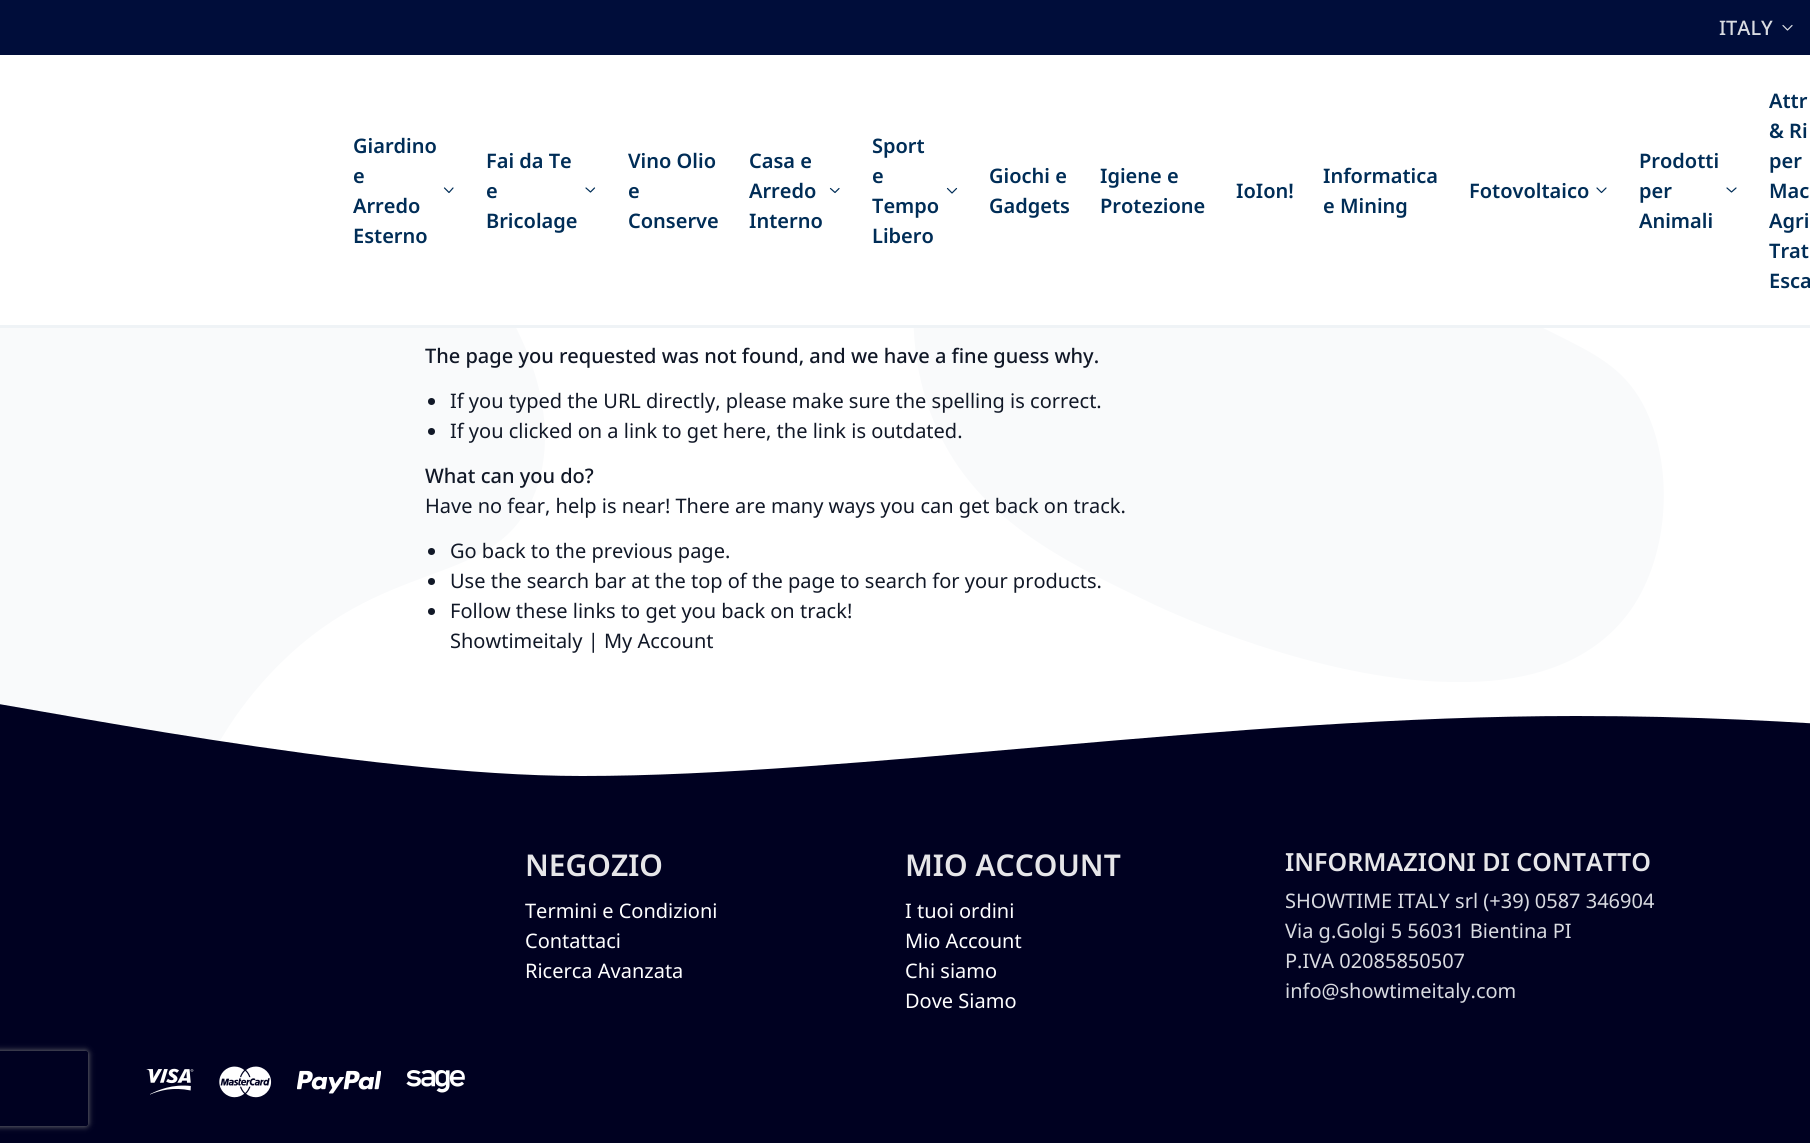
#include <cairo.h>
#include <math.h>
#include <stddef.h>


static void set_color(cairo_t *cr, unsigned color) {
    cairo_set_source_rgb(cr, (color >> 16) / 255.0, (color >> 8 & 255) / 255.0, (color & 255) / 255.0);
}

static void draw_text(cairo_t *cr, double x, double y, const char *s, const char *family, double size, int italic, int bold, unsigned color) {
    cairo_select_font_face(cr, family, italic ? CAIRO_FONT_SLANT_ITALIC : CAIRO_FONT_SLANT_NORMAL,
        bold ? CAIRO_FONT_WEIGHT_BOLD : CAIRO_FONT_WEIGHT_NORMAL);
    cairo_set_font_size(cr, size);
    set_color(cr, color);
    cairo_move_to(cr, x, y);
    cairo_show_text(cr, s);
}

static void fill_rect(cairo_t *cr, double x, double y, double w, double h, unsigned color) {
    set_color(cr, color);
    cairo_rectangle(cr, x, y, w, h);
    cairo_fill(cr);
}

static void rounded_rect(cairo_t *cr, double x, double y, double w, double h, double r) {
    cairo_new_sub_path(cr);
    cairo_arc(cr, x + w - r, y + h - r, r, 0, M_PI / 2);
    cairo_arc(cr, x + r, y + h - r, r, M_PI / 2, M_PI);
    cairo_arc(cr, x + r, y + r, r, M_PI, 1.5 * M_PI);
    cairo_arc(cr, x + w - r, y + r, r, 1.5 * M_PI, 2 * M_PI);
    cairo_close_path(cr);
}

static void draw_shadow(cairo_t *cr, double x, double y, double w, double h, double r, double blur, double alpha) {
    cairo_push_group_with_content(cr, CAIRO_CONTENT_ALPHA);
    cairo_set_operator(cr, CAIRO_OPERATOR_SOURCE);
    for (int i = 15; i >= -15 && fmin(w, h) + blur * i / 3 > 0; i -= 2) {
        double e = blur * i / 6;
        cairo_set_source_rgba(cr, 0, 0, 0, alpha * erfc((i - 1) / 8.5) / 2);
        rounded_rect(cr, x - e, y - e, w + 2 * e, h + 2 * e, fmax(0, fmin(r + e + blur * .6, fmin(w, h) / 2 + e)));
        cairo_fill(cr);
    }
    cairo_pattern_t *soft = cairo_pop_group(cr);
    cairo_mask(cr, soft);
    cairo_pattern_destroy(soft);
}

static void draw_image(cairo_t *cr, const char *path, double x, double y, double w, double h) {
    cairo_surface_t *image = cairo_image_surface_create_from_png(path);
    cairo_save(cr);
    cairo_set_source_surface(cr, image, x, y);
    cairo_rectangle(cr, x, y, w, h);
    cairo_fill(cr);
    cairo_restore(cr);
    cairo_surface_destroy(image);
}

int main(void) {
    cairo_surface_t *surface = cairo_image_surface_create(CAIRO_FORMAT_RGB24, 1810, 1143);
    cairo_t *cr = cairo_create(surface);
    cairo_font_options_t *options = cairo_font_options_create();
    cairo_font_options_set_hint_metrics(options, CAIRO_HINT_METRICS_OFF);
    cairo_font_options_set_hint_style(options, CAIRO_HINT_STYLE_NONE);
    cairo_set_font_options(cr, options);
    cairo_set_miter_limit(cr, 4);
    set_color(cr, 0xFFFFFF);
    cairo_paint(cr);
    set_color(cr, 0xF9FAFB);
    cairo_new_path(cr);
    cairo_move_to(cr, 445, 232);
    cairo_curve_to(cr, 513, 296, 572, 412, 532, 500);
    cairo_curve_to(cr, 490, 591, 382, 554, 270, 674);
    cairo_curve_to(cr, 182, 768, 197, 842, 114, 876);
    cairo_curve_to(cr, 53, 902, -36, 894, -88, 850);
    cairo_curve_to(cr, -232, 729, -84, 405, -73, 382);
    cairo_curve_to(cr, -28, 286, 18, 190, 129, 154);
    cairo_curve_to(cr, 239, 118, 366, 157, 445, 232);
    cairo_close_path(cr);
    cairo_fill(cr);
    cairo_new_path(cr);
    cairo_move_to(cr, 1005, 87);
    cairo_curve_to(cr, 1069, 19, 1185, -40, 1273, 0);
    cairo_curve_to(cr, 1364, 42, 1327, 150, 1447, 262);
    cairo_curve_to(cr, 1541, 350, 1615, 335, 1649, 417);
    cairo_curve_to(cr, 1675, 479, 1667, 568, 1623, 620);
    cairo_curve_to(cr, 1586, 664, 1529, 681, 1468, 682);
    cairo_line_to(cr, 1450, 682);
    cairo_curve_to(cr, 1317, 680, 1170, 612, 1155, 605);
    cairo_curve_to(cr, 1059, 559, 963, 514, 927, 403);
    cairo_curve_to(cr, 891, 292, 930, 166, 1005, 87);
    cairo_close_path(cr);
    cairo_fill(cr);
    fill_rect(cr, 0, 55, 1537, 270, 0xFFFFFF);
    fill_rect(cr, 0, 325, 1810, 3, 0xEFF3F6);
    fill_rect(cr, 0, 0, 1810, 55, 0x000D3A);
    draw_text(cr, 1719, 35, "ITALY", "Noto Sans Medium", 20, 0, 0, 0xD9DBE1);
    cairo_new_path(cr);
    cairo_move_to(cr, 1792, 25.5);
    cairo_line_to(cr, 1787.5, 30);
    cairo_line_to(cr, 1783, 25.5);
    cairo_set_line_width(cr, 1.2);
    cairo_set_line_cap(cr, CAIRO_LINE_CAP_ROUND);
    cairo_set_line_join(cr, CAIRO_LINE_JOIN_ROUND);
    cairo_stroke(cr);
    draw_text(cr, 353, 153, "Giardino", "Noto Sans SemiBold", 20, 0, 0, 0x002D57);
    draw_text(cr, 353, 183, "e", "Noto Sans SemiBold", 20, 0, 0, 0x002D57);
    cairo_new_path(cr);
    cairo_move_to(cr, 453, 188);
    cairo_line_to(cr, 449, 192.5);
    cairo_line_to(cr, 444.5, 188);
    cairo_stroke(cr);
    draw_text(cr, 353, 213, "Arredo", "Noto Sans SemiBold", 20, 0, 0, 0x002D57);
    draw_text(cr, 353, 243, "Esterno", "Noto Sans SemiBold", 20, 0, 0, 0x002D57);
    draw_text(cr, 486, 168, "Fai da Te", "Noto Sans SemiBold", 20, 0, 0, 0x002D57);
    draw_text(cr, 486, 198, "e", "Noto Sans SemiBold", 20, 0, 0, 0x002D57);
    cairo_new_path(cr);
    cairo_move_to(cr, 594.5, 188);
    cairo_line_to(cr, 590.5, 192);
    cairo_line_to(cr, 586, 188);
    cairo_stroke(cr);
    draw_text(cr, 486, 228, "Bricolage", "Noto Sans SemiBold", 20, 0, 0, 0x002D57);
    draw_text(cr, 628, 168, "Vino Olio", "Noto Sans SemiBold", 20, 0, 0, 0x002D57);
    draw_text(cr, 628, 198, "e", "Noto Sans SemiBold", 20, 0, 0, 0x002D57);
    draw_text(cr, 628, 228, "Conserve", "Noto Sans SemiBold", 20, 0, 0, 0x002D57);
    draw_text(cr, 749, 168, "Casa e", "Noto Sans SemiBold", 20, 0, 0, 0x002D57);
    draw_text(cr, 749, 198, "Arredo", "Noto Sans SemiBold", 20, 0, 0, 0x002D57);
    cairo_new_path(cr);
    cairo_move_to(cr, 839, 188.5);
    cairo_line_to(cr, 835, 192.5);
    cairo_line_to(cr, 830.5, 188.5);
    cairo_stroke(cr);
    draw_text(cr, 749, 228, "Interno", "Noto Sans SemiBold", 20, 0, 0, 0x002D57);
    draw_text(cr, 872, 153, "Sport", "Noto Sans SemiBold", 20, 0, 0, 0x002D57);
    draw_text(cr, 872, 183, "e", "Noto Sans SemiBold", 20, 0, 0, 0x002D57);
    cairo_new_path(cr);
    cairo_move_to(cr, 956.5, 188.5);
    cairo_line_to(cr, 952, 193);
    cairo_line_to(cr, 947.5, 188.5);
    cairo_stroke(cr);
    draw_text(cr, 872, 213, "Tempo", "Noto Sans SemiBold", 20, 0, 0, 0x002D57);
    draw_text(cr, 872, 243, "Libero", "Noto Sans SemiBold", 20, 0, 0, 0x002D57);
    draw_text(cr, 989, 183, "Giochi e", "Noto Sans SemiBold", 20, 0, 0, 0x002D57);
    draw_text(cr, 989, 213, "Gadgets", "Noto Sans SemiBold", 20, 0, 0, 0x002D57);
    draw_text(cr, 1100, 183, "Igiene e", "Noto Sans SemiBold", 20, 0, 0, 0x002D57);
    draw_text(cr, 1100, 213, "Protezione", "Noto Sans SemiBold", 20, 0, 0, 0x002D57);
    draw_text(cr, 1236, 198, "IoIon!", "Noto Sans SemiBold", 20, 0, 0, 0x002D57);
    draw_text(cr, 1323, 183, "Informatica", "Noto Sans SemiBold", 20, 0, 0, 0x002D57);
    draw_text(cr, 1323, 213, "e Mining", "Noto Sans SemiBold", 20, 0, 0, 0x002D57);
    draw_text(cr, 1469, 198, "Fotovoltaico", "Noto Sans SemiBold", 20, 0, 0, 0x002D57);
    cairo_new_path(cr);
    cairo_move_to(cr, 1606, 188);
    cairo_line_to(cr, 1601.5, 192.5);
    cairo_line_to(cr, 1597, 188);
    cairo_stroke(cr);
    draw_text(cr, 1639, 168, "Prodotti", "Noto Sans SemiBold", 20, 0, 0, 0x002D57);
    draw_text(cr, 1639, 198, "per", "Noto Sans SemiBold", 20, 0, 0, 0x002D57);
    cairo_new_path(cr);
    cairo_move_to(cr, 1736, 188);
    cairo_line_to(cr, 1731.5, 192);
    cairo_line_to(cr, 1727, 188);
    cairo_stroke(cr);
    draw_text(cr, 1639, 228, "Animali", "Noto Sans SemiBold", 20, 0, 0, 0x002D57);
    draw_text(cr, 1769, 108, "Attr", "Noto Sans SemiBold", 20, 0, 0, 0x002D57);
    draw_text(cr, 1769, 138, "& Ri", "Noto Sans SemiBold", 20, 0, 0, 0x002D57);
    draw_text(cr, 1769, 168, "per", "Noto Sans SemiBold", 20, 0, 0, 0x002D57);
    draw_text(cr, 1769, 198, "Mac", "Noto Sans SemiBold", 20, 0, 0, 0x002D57);
    draw_text(cr, 1769, 228, "Agri", "Noto Sans SemiBold", 20, 0, 0, 0x002D57);
    draw_text(cr, 1769, 258, "Trat", "Noto Sans SemiBold", 20, 0, 0, 0x002D57);
    draw_text(cr, 1769, 288, "Esca", "Noto Sans SemiBold", 20, 0, 0, 0x002D57);
    draw_text(cr, 425, 363, "The page you requested was not found, and we have a fine guess why.", "Noto Sans Medium", 20, 0, 0, 0x111827);
    cairo_new_path(cr);
    cairo_arc(cr, 431.5, 401.5, 3.5, 0, 2 * M_PI);
    cairo_fill(cr);
    draw_text(cr, 450, 408, "If you typed the URL directly, please make sure the spelling is correct.", "Noto Sans", 20, 0, 0, 0x111827);
    cairo_new_path(cr);
    cairo_arc(cr, 431.5, 431.5, 3.5, 0, 2 * M_PI);
    cairo_fill(cr);
    draw_text(cr, 450, 438, "If you clicked on a link to get here, the link is outdated.", "Noto Sans", 20, 0, 0, 0x111827);
    draw_text(cr, 425, 483, "What can you do?", "Noto Sans Medium", 20, 0, 0, 0x111827);
    draw_text(cr, 425, 513, "Have no fear, help is near! There are many ways you can get back on track.", "Noto Sans", 20, 0, 0, 0x111827);
    cairo_new_path(cr);
    cairo_arc(cr, 431.5, 551.5, 3.5, 0, 2 * M_PI);
    cairo_fill(cr);
    draw_text(cr, 450, 558, "Go back to the previous page.", "Noto Sans", 20, 0, 0, 0x111827);
    cairo_new_path(cr);
    cairo_arc(cr, 431.5, 581.5, 3.5, 0, 2 * M_PI);
    cairo_fill(cr);
    draw_text(cr, 450, 588, "Use the search bar at the top of the page to search for your products.", "Noto Sans", 20, 0, 0, 0x111827);
    cairo_new_path(cr);
    cairo_arc(cr, 431.5, 611.5, 3.5, 0, 2 * M_PI);
    cairo_fill(cr);
    draw_text(cr, 450, 618, "Follow these links to get you back on track!", "Noto Sans", 20, 0, 0, 0x111827);
    draw_text(cr, 450, 648, "Showtimeitaly | My Account", "Noto Sans", 20, 0, 0, 0x111827);
    set_color(cr, 0x000121);
    cairo_new_path(cr);
    cairo_move_to(cr, 582, 776);
    cairo_curve_to(cr, 362, 776, 24, 706, -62, 694);
    cairo_curve_to(cr, -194, 674, -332, 694, -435, 716);
    cairo_curve_to(cr, -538, 739, -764, 776, -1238, 776);
    cairo_line_to(cr, -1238, 794);
    cairo_line_to(cr, 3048, 794);
    cairo_line_to(cr, 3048, 776);
    cairo_curve_to(cr, 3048, 776, 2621, 766, 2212, 749);
    cairo_curve_to(cr, 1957, 738, 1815, 716, 1576, 716);
    cairo_curve_to(cr, 1231, 716, 852, 776, 582, 776);
    cairo_close_path(cr);
    cairo_fill(cr);
    fill_rect(cr, 0, 794, 1810, 349, 0x000121);
    draw_text(cr, 525, 876, "NEGOZIO", "Noto Sans SemiBold", 30, 0, 0, 0xE6E6E9);
    draw_text(cr, 525, 918, "Termini e Condizioni", "Noto Sans", 20, 0, 0, 0xFFFFFF);
    draw_text(cr, 525, 948, "Contattaci", "Noto Sans", 20, 0, 0, 0xFFFFFF);
    draw_text(cr, 525, 978, "Ricerca Avanzata", "Noto Sans", 20, 0, 0, 0xFFFFFF);
    draw_text(cr, 905, 876, "MIO ACCOUNT", "Noto Sans SemiBold", 30, 0, 0, 0xE6E6E9);
    draw_text(cr, 905, 918, "I tuoi ordini", "Noto Sans", 20, 0, 0, 0xFFFFFF);
    draw_text(cr, 905, 948, "Mio Account", "Noto Sans", 20, 0, 0, 0xFFFFFF);
    draw_text(cr, 905, 978, "Chi siamo", "Noto Sans", 20, 0, 0, 0xFFFFFF);
    draw_text(cr, 905, 1008, "Dove Siamo", "Noto Sans", 20, 0, 0, 0xFFFFFF);
    draw_text(cr, 1285, 871, "INFORMAZIONI DI CONTATTO", "Noto Sans SemiBold", 25, 0, 0, 0xE6E6E9);
    draw_text(cr, 1285, 908, "SHOWTIME ITALY srl (+39) 0587 346904", "Noto Sans", 20, 0, 0, 0xD9DBE1);
    draw_text(cr, 1285, 938, "Via g.Golgi 5 56031 Bientina PI", "Noto Sans", 20, 0, 0, 0xD9DBE1);
    draw_text(cr, 1285, 968, "P.IVA 02085850507", "Noto Sans", 20, 0, 0, 0xD9DBE1);
    draw_text(cr, 1285, 998, "info@showtimeitaly.com", "Noto Sans", 20, 0, 0, 0xD9DBE1);
    draw_image(cr, "assets/img1.png", 146, 1066, 319, 32);
    cairo_save(cr);
    cairo_set_fill_rule(cr, CAIRO_FILL_RULE_EVEN_ODD);
    cairo_new_path(cr);
    cairo_move_to(cr, 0, 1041);
    cairo_line_to(cr, 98, 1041);
    cairo_line_to(cr, 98, 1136);
    cairo_line_to(cr, 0, 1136);
    cairo_close_path(cr);
    cairo_move_to(cr, -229.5, 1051);
    cairo_line_to(cr, 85.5, 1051);
    cairo_curve_to(cr, 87, 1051, 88, 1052, 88, 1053.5);
    cairo_line_to(cr, 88, 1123.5);
    cairo_curve_to(cr, 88, 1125, 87, 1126, 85.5, 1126);
    cairo_line_to(cr, -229.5, 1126);
    cairo_curve_to(cr, -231, 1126, -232, 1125, -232, 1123.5);
    cairo_line_to(cr, -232, 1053.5);
    cairo_curve_to(cr, -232, 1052, -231, 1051, -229.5, 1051);
    cairo_close_path(cr);
    cairo_clip(cr);
    set_color(cr, 0x808080);
    draw_shadow(cr, -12, 1051, 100, 75, 2.5, 3, 1);
    cairo_restore(cr);
    cairo_surface_write_to_png(surface, "output.png");
    cairo_font_options_destroy(options);
    cairo_destroy(cr);
    cairo_surface_destroy(surface);
    return 0;
}
